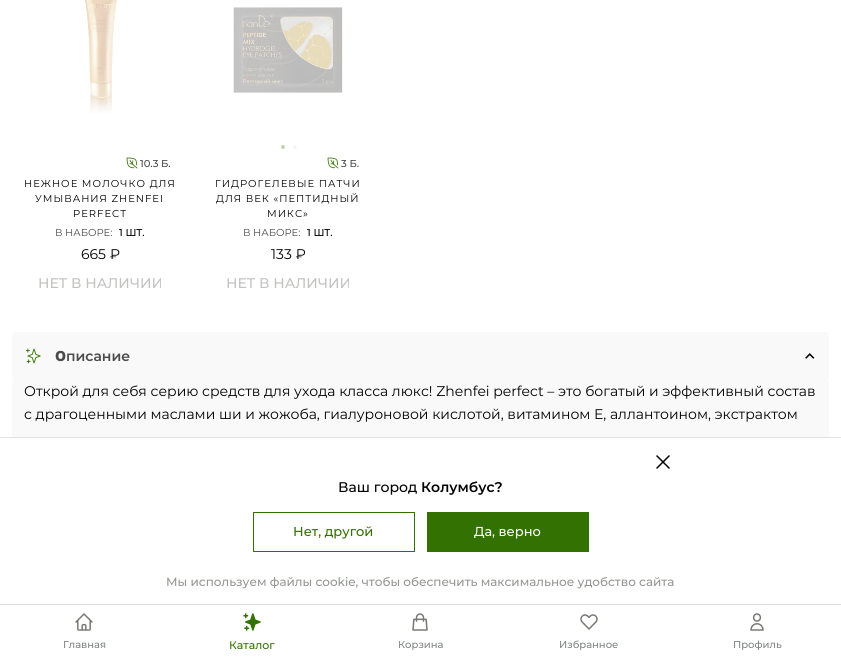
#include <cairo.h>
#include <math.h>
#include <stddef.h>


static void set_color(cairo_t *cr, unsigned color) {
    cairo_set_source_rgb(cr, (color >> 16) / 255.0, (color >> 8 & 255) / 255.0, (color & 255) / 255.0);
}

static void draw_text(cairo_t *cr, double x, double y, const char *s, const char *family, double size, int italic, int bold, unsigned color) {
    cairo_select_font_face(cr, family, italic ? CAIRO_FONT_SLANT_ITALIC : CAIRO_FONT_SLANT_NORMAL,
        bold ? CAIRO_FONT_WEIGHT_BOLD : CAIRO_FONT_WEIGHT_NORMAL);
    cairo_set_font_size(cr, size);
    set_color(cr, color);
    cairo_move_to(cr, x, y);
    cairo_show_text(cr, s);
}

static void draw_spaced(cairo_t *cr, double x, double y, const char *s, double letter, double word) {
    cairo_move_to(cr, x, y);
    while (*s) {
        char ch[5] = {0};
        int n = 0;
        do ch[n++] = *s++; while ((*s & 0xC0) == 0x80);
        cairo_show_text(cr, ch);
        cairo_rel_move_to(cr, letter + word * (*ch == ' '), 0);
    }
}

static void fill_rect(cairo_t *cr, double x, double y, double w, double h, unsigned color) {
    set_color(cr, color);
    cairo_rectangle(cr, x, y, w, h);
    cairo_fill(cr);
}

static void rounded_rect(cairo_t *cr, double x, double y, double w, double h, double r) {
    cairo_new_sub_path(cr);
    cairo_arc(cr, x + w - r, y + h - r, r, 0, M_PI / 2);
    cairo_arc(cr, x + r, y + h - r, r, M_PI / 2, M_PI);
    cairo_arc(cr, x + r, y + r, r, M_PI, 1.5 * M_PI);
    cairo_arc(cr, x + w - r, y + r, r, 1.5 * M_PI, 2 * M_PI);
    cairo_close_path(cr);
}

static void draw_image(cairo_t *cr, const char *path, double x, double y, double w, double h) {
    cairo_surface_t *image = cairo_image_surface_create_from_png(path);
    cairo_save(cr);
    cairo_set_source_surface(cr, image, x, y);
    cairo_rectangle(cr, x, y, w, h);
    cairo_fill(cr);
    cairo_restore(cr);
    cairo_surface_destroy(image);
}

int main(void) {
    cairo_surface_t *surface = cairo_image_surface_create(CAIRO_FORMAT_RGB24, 841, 672);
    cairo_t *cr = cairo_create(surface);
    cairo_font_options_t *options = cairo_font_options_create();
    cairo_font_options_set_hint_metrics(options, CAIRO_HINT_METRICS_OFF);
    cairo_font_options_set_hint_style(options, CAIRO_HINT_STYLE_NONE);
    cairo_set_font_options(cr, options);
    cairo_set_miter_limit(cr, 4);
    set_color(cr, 0xFFFFFF);
    cairo_paint(cr);
    draw_image(cr, "assets/img1.png", 85, 0, 32, 113);
    draw_image(cr, "assets/img2.png", 126, 157, 12, 12);
    draw_text(cr, 140, 167, "10.3 Б.", "Montserrat Medium", 10, 0, 0, 0x4B4B4B);
    cairo_select_font_face(cr, "Montserrat", CAIRO_FONT_SLANT_NORMAL, CAIRO_FONT_WEIGHT_NORMAL);
    set_color(cr, 0x000000);
    draw_spaced(cr, 24, 187, "НЕЖНОЕ МОЛОЧКО ДЛЯ", 1, 0);
    draw_spaced(cr, 35, 202, "УМЫВАНИЯ ZHENFEI", 1, 0);
    draw_spaced(cr, 73, 217, "PERFECT", 1, 0);
    draw_text(cr, 55, 236, "В НАБОРЕ:", "Montserrat", 10, 0, 0, 0x4B4B4B);
    draw_text(cr, 119, 236, "1 ШТ.", "Montserrat Medium", 10, 0, 0, 0x000000);
    draw_text(cr, 81, 259, "665 ₽", "Montserrat", 14, 0, 0, 0x000000);
    draw_text(cr, 38, 288, "НЕТ В НАЛИЧИИ", "Montserrat Medium", 14, 0, 0, 0xC2C3C1);
    draw_image(cr, "assets/img3.png", 233, 7, 110, 86);
    set_color(cr, 0xC2D5B3);
    cairo_arc(cr, 283, 147, 2, 0, 2 * M_PI);
    cairo_fill(cr);
    set_color(cr, 0xF4F5F4);
    cairo_arc(cr, 295, 147, 2, 0, 2 * M_PI);
    cairo_fill(cr);
    draw_image(cr, "assets/img2.png", 327, 157, 12, 12);
    draw_text(cr, 341, 167, "3 Б.", "Montserrat Medium", 10, 0, 0, 0x4B4B4B);
    cairo_select_font_face(cr, "Montserrat", CAIRO_FONT_SLANT_NORMAL, CAIRO_FONT_WEIGHT_NORMAL);
    set_color(cr, 0x000000);
    draw_spaced(cr, 215, 187, "ГИДРОГЕЛЕВЫЕ ПАТЧИ", 1, 0);
    draw_spaced(cr, 216, 202, "ДЛЯ ВЕК «ПЕПТИДНЫЙ", 1, 0);
    draw_spaced(cr, 267, 217, "МИКС»", 1, 0);
    draw_text(cr, 243, 236, "В НАБОРЕ:", "Montserrat", 10, 0, 0, 0x4B4B4B);
    draw_text(cr, 307, 236, "1 ШТ.", "Montserrat Medium", 10, 0, 0, 0x000000);
    draw_text(cr, 271, 259, "133 ₽", "Montserrat", 14, 0, 0, 0x000000);
    draw_text(cr, 226, 288, "НЕТ В НАЛИЧИИ", "Montserrat Medium", 14, 0, 0, 0xC2C3C1);
    set_color(cr, 0xF9F9F9);
    rounded_rect(cr, 12, 332, 817, 48, 4);
    cairo_fill(cr);
    draw_image(cr, "assets/img4.png", 25, 348, 16, 16);
    draw_text(cr, 55, 361, "О", "Noto Sans Black", 14, 0, 0, 0x4B4B4B);
    draw_text(cr, 66, 361, "писание", "Montserrat SemiBold", 14, 0, 0, 0x4B4B4B);
    draw_image(cr, "assets/img5.png", 805, 353, 10, 6);
    fill_rect(cr, 12, 380, 817, 57, 0xF9F9F9);
    draw_text(cr, 24, 396, "Открой для себя серию средств для ухода класса люкс! Zhenfei perfect – это богатый и эффективный состав", "Montserrat", 14, 0, 0, 0x000000);
    draw_text(cr, 24, 419, "с драгоценными маслами ши и жожоба, гиалуроновой кислотой, витамином Е, аллантоином, экстрактом", "Montserrat", 14, 0, 0, 0x000000);
    fill_rect(cr, 0, 437, 841, 1, 0xE0E1E0);
    cairo_new_path(cr);
    cairo_move_to(cr, 669, 456);
    cairo_line_to(cr, 657, 468);
    cairo_move_to(cr, 657, 456);
    cairo_line_to(cr, 669, 468);
    set_color(cr, 0x000000);
    cairo_set_line_width(cr, 1.5);
    cairo_set_line_cap(cr, CAIRO_LINE_CAP_ROUND);
    cairo_stroke(cr);
    draw_text(cr, 338, 492, "Ваш город", "Montserrat Medium", 14, 0, 0, 0x000000);
    draw_text(cr, 421, 492, "Колумбус?", "Montserrat SemiBold", 14, 0, 0, 0x000000);
    cairo_rectangle(cr, 253.5, 512.5, 161, 39);
    set_color(cr, 0x337202);
    cairo_set_line_width(cr, 1);
    cairo_set_line_cap(cr, CAIRO_LINE_CAP_BUTT);
    cairo_stroke(cr);
    draw_text(cr, 293, 536, "Нет, другой", "Montserrat Medium", 13, 0, 0, 0x337202);
    fill_rect(cr, 427, 512, 162, 40, 0x337202);
    draw_text(cr, 474, 536, "Да, верно", "Montserrat Medium", 13, 0, 0, 0xFFFFFF);
    draw_text(cr, 166, 586, "Мы используем файлы cookie, чтобы обеспечить максимальное удобство сайта", "Montserrat Medium", 12, 0, 0, 0x949792);
    fill_rect(cr, 0, 604, 841, 1, 0xDBDCDA);
    draw_image(cr, "assets/img6.png", 75, 613, 18, 18);
    draw_text(cr, 63, 648, "Главная", "Montserrat Medium", 10, 0, 0, 0x828584);
    draw_image(cr, "assets/img7.png", 243, 613, 18, 18);
    draw_text(cr, 229, 649, "Каталог", "Montserrat Medium", 11, 0, 0, 0x337202);
    draw_image(cr, "assets/img8.png", 412, 613, 16, 18);
    draw_text(cr, 398, 648, "Корзина", "Montserrat Medium", 10, 0, 0, 0x828584);
    draw_image(cr, "assets/img9.png", 580, 614, 18, 16);
    draw_text(cr, 559, 648, "Избранное", "Montserrat Medium", 10, 0, 0, 0x828584);
    draw_image(cr, "assets/img10.png", 750, 613, 14, 18);
    draw_text(cr, 733, 648, "Профиль", "Montserrat Medium", 10, 0, 0, 0x828584);
    cairo_surface_write_to_png(surface, "output.png");
    cairo_font_options_destroy(options);
    cairo_destroy(cr);
    cairo_surface_destroy(surface);
    return 0;
}
